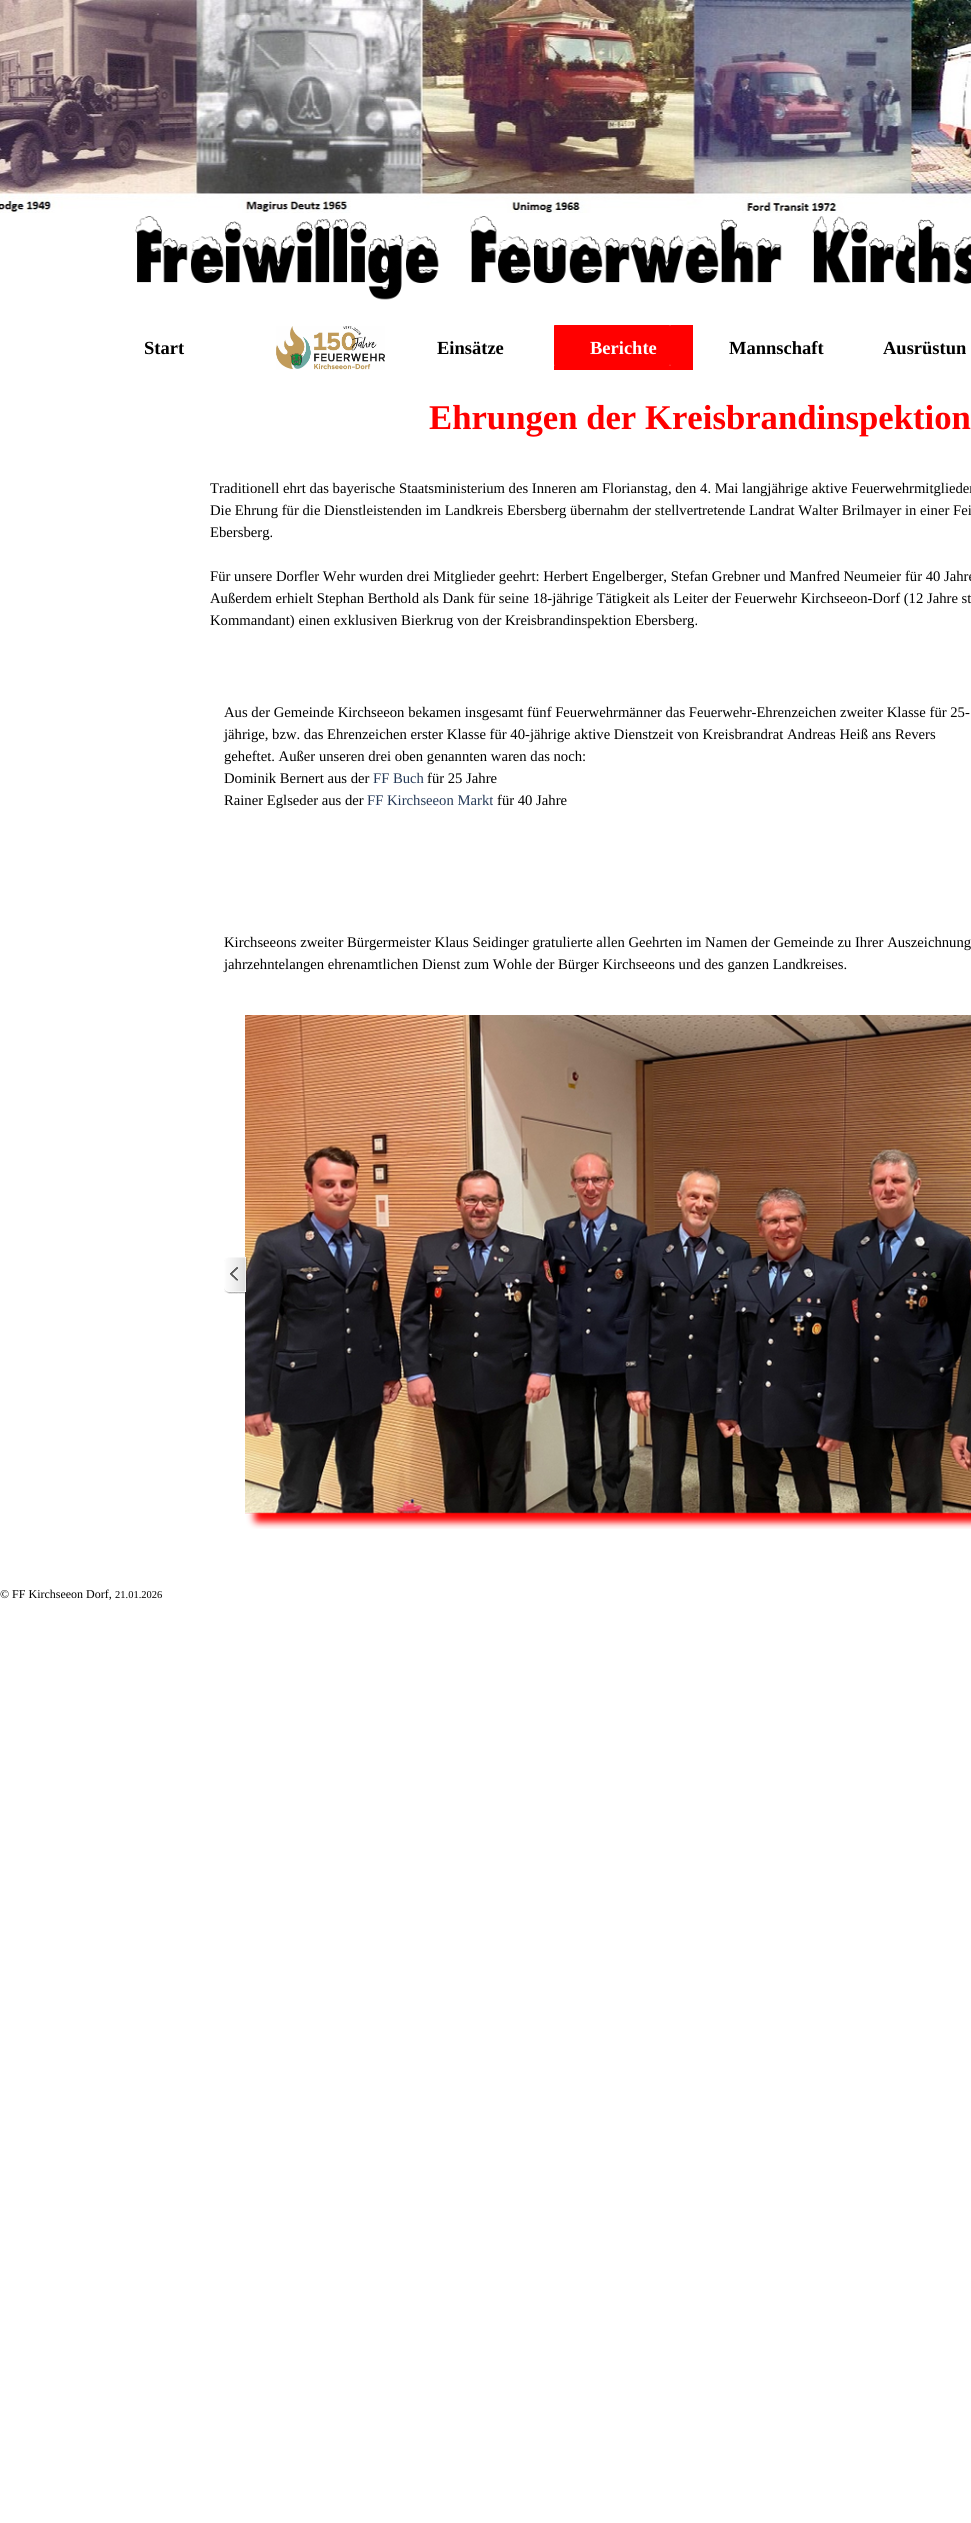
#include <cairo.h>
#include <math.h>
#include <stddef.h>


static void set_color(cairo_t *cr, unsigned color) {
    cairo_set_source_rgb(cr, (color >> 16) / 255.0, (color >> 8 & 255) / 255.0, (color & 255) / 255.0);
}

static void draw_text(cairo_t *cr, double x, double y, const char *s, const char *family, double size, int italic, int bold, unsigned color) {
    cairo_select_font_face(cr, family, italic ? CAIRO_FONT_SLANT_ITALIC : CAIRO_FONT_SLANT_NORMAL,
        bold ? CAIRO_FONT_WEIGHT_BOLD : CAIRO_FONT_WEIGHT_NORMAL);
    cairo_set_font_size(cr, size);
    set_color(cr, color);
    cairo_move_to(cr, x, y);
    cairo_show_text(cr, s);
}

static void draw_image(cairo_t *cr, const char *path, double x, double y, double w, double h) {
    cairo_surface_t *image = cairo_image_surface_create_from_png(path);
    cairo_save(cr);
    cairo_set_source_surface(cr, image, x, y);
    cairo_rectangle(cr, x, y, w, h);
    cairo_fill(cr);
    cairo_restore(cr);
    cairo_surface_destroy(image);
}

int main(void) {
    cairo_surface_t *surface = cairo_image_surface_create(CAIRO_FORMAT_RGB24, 971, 2523);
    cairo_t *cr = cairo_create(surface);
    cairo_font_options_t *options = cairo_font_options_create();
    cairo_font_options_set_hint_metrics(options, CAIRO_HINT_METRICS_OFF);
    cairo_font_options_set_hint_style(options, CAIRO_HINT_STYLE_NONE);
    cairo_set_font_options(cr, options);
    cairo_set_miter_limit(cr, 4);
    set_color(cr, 0xFFFFFF);
    cairo_paint(cr);
    draw_image(cr, "assets/img1.png", 0, 0, 971, 213);
    draw_image(cr, "assets/img2.png", 135, 216, 836, 84);
    draw_text(cr, 144, 354, "Start", "Liberation Serif", 18.5, 0, 1, 0x000000);
    draw_image(cr, "assets/img3.png", 276, 326, 109, 44);
    draw_text(cr, 437, 354, "Einsätze", "Liberation Serif", 18.5, 0, 1, 0x000000);
    draw_image(cr, "assets/img4.png", 554, 325, 139, 45);
    draw_text(cr, 590, 354, "Berichte", "Liberation Serif", 18.5, 0, 1, 0xFFFFFF);
    draw_text(cr, 729, 354, "Mannschaft", "Liberation Serif", 18.5, 0, 1, 0x000000);
    draw_text(cr, 883, 354, "Ausrüstun", "Liberation Serif", 18.5, 0, 1, 0x000000);
    draw_text(cr, 429, 429, "Ehrungen der Kreisbrandinspektion", "Liberation Serif", 34.7, 0, 1, 0xFF0000);
    draw_text(cr, 210, 493, "Traditionell ehrt das bayerische Staatsministerium des Inneren am Florianstag, den 4. Mai langjährige aktive Feuerwehrmitglieder", "Liberation Serif", 14.67, 0, 0, 0x000000);
    draw_text(cr, 210, 515, "Die Ehrung für die Dienstleistenden im Landkreis Ebersberg übernahm der stellvertretende Landrat Walter Brilmayer in einer Fei", "Liberation Serif", 14.67, 0, 0, 0x000000);
    draw_text(cr, 210, 537, "Ebersberg.", "Liberation Serif", 14.67, 0, 0, 0x000000);
    draw_text(cr, 210, 581, "Für unsere Dorfler Wehr wurden drei Mitglieder geehrt: Herbert Engelberger, Stefan Grebner und Manfred Neumeier für 40 Jahre", "Liberation Serif", 14.67, 0, 0, 0x000000);
    draw_text(cr, 210, 603, "Außerdem erhielt Stephan Berthold als Dank für seine 18-jährige Tätigkeit als Leiter der Feuerwehr Kirchseeon-Dorf (12 Jahre st", "Liberation Serif", 14.67, 0, 0, 0x000000);
    draw_text(cr, 210, 625, "Kommandant) einen exklusiven Bierkrug von der Kreisbrandinspektion Ebersberg.", "Liberation Serif", 14.67, 0, 0, 0x000000);
    draw_text(cr, 224, 717, "Aus der Gemeinde Kirchseeon bekamen insgesamt fünf Feuerwehrmänner das Feuerwehr-Ehrenzeichen zweiter Klasse für 25-", "Liberation Serif", 14.67, 0, 0, 0x000000);
    draw_text(cr, 224, 739, "jährige, bzw. das Ehrenzeichen erster Klasse für 40-jährige aktive Dienstzeit von Kreisbrandrat Andreas Heiß ans Revers", "Liberation Serif", 14.67, 0, 0, 0x000000);
    draw_text(cr, 224, 761, "geheftet. Außer unseren drei oben genannten waren das noch:", "Liberation Serif", 14.67, 0, 0, 0x000000);
    draw_text(cr, 224, 783, "Dominik Bernert aus der", "Liberation Serif", 14.67, 0, 0, 0x000000);
    draw_text(cr, 373, 783, "FF Buch", "Liberation Serif", 14.67, 0, 0, 0x253A58);
    draw_text(cr, 427, 783, "für 25 Jahre", "Liberation Serif", 14.67, 0, 0, 0x000000);
    draw_text(cr, 224, 805, "Rainer Eglseder aus der", "Liberation Serif", 14.67, 0, 0, 0x000000);
    draw_text(cr, 367, 805, "FF Kirchseeon Markt", "Liberation Serif", 14.67, 0, 0, 0x253A58);
    draw_text(cr, 497, 805, "für 40 Jahre", "Liberation Serif", 14.67, 0, 0, 0x000000);
    draw_text(cr, 224, 947, "Kirchseeons zweiter Bürgermeister Klaus Seidinger gratulierte allen Geehrten im Namen der Gemeinde zu Ihrer Auszeichnung", "Liberation Serif", 14.67, 0, 0, 0x000000);
    draw_text(cr, 224, 969, "jahrzehntelangen ehrenamtlichen Dienst zum Wohle der Bürger Kirchseeons und des ganzen Landkreises.", "Liberation Serif", 14.67, 0, 0, 0x000000);
    draw_image(cr, "assets/img6.png", 245, 1015, 726, 514);
    draw_image(cr, "assets/img5.png", 224, 1257, 24, 37);
    draw_text(cr, 0, 1598, "© FF Kirchseeon Dorf,", "Liberation Serif", 12, 0, 0, 0x000000);
    draw_text(cr, 115, 1598, "21.01.2026", "Liberation Serif", 10.5, 0, 0, 0x000000);
    cairo_surface_write_to_png(surface, "output.png");
    cairo_font_options_destroy(options);
    cairo_destroy(cr);
    cairo_surface_destroy(surface);
    return 0;
}
